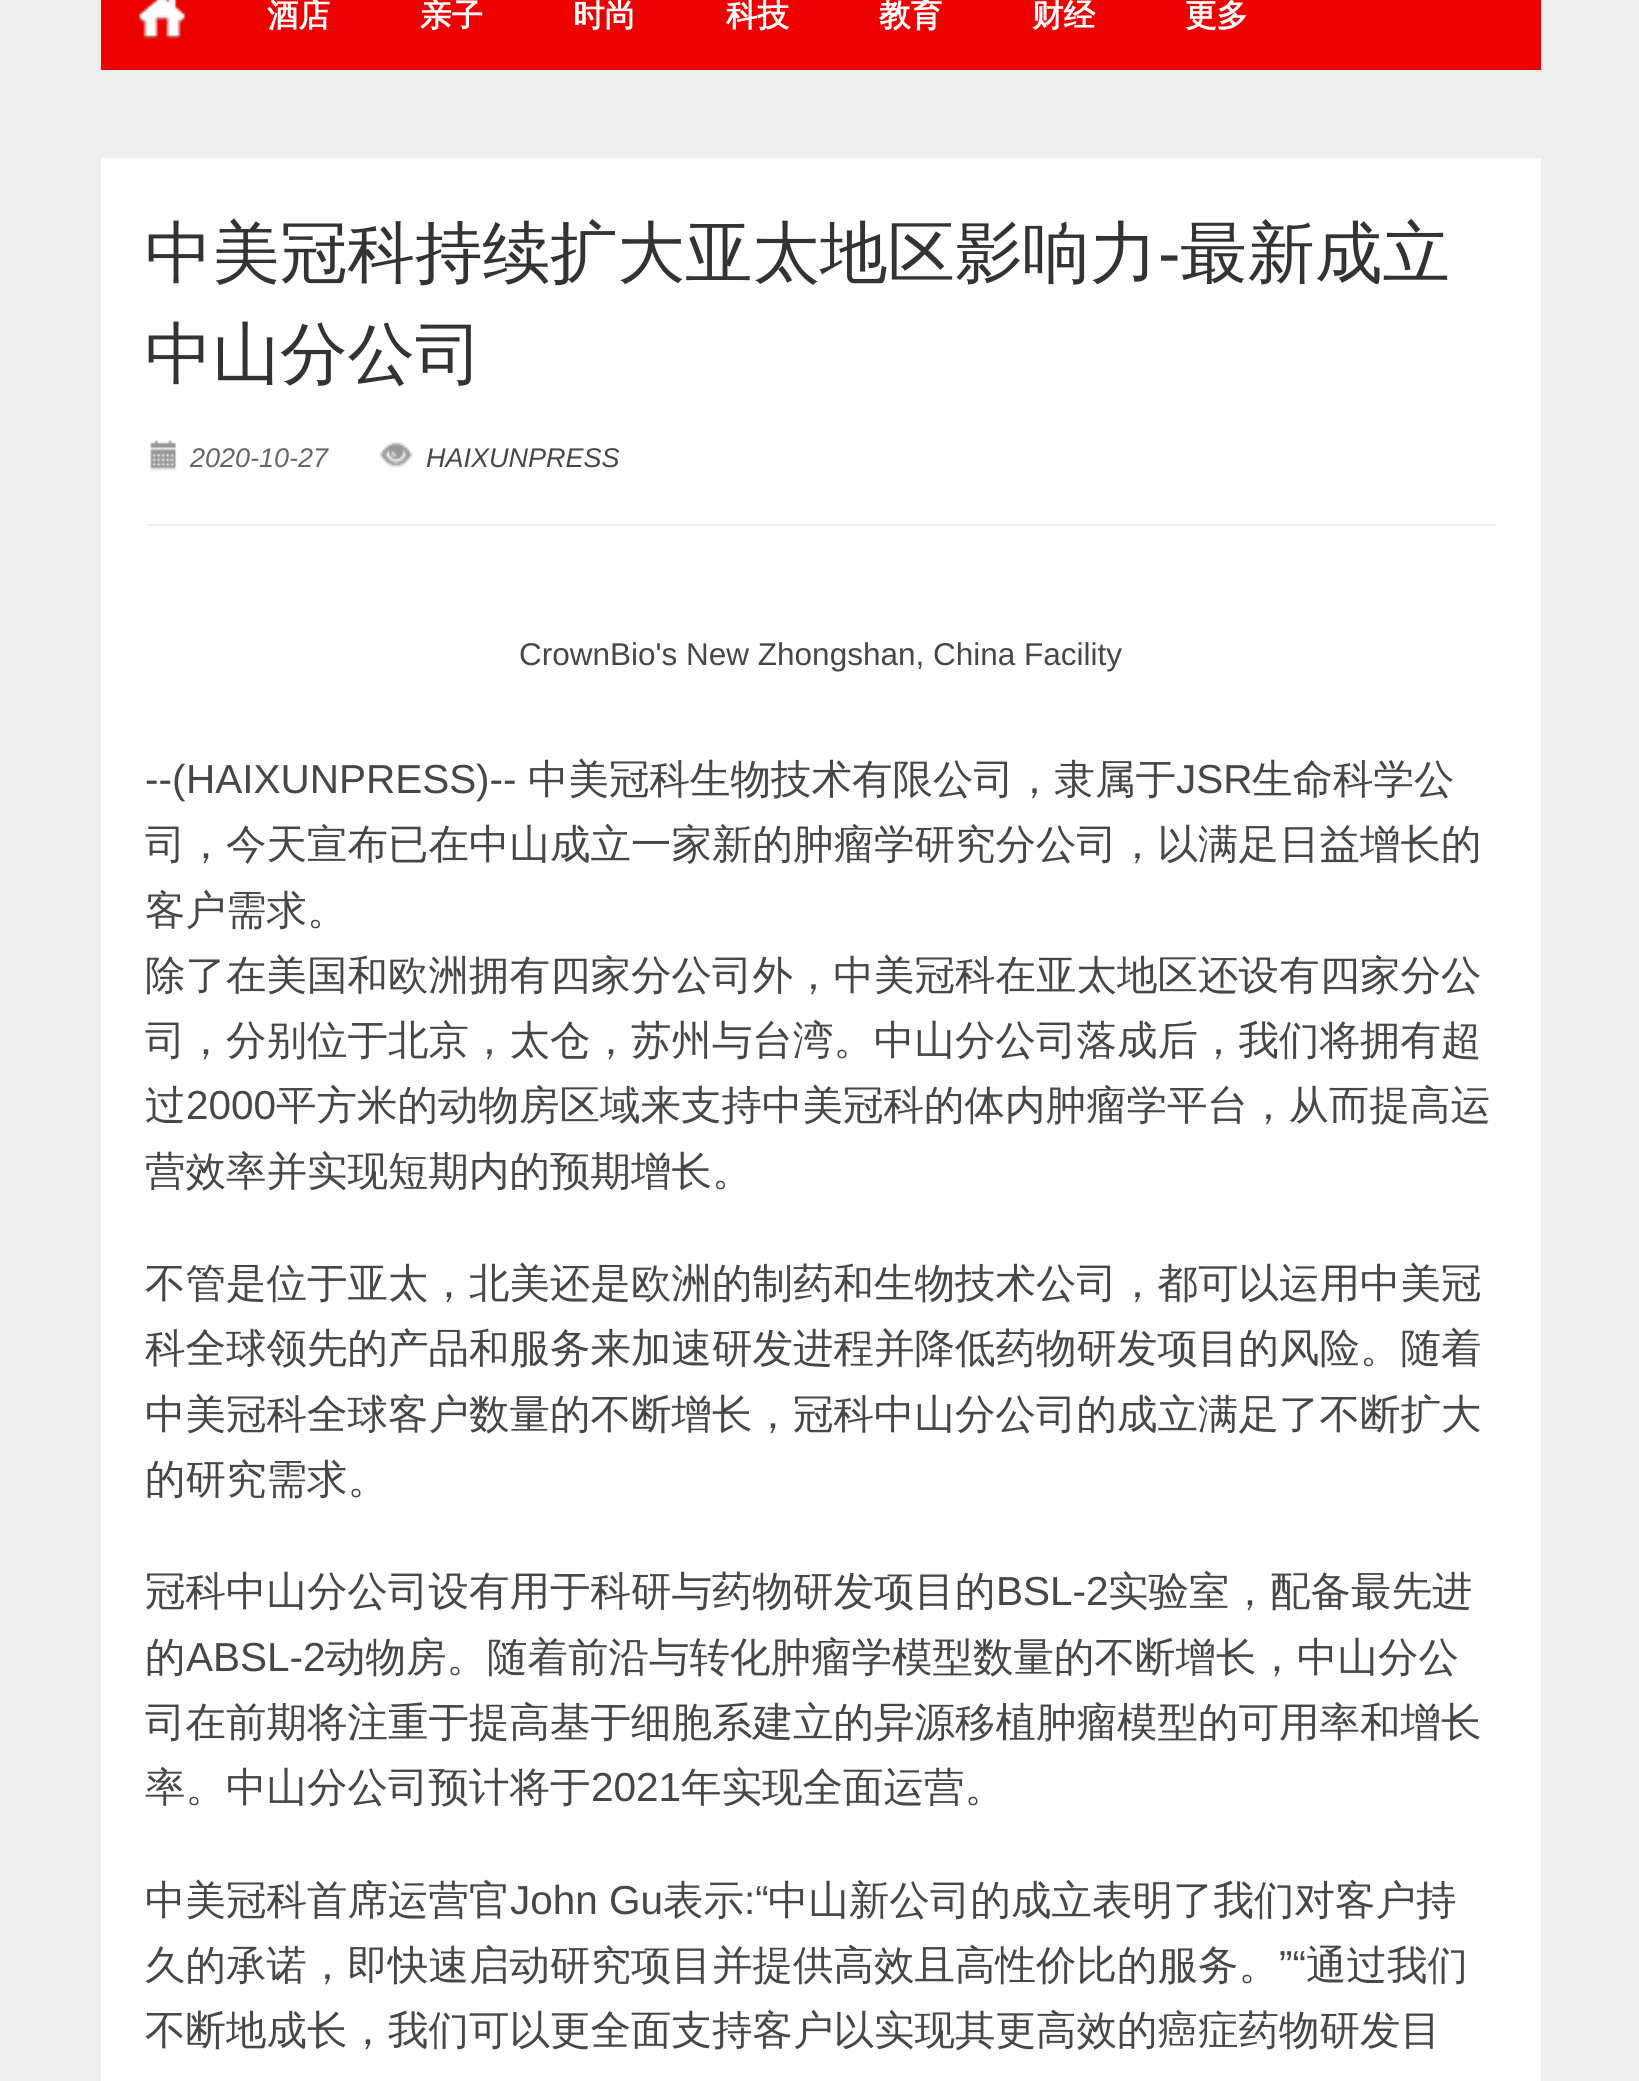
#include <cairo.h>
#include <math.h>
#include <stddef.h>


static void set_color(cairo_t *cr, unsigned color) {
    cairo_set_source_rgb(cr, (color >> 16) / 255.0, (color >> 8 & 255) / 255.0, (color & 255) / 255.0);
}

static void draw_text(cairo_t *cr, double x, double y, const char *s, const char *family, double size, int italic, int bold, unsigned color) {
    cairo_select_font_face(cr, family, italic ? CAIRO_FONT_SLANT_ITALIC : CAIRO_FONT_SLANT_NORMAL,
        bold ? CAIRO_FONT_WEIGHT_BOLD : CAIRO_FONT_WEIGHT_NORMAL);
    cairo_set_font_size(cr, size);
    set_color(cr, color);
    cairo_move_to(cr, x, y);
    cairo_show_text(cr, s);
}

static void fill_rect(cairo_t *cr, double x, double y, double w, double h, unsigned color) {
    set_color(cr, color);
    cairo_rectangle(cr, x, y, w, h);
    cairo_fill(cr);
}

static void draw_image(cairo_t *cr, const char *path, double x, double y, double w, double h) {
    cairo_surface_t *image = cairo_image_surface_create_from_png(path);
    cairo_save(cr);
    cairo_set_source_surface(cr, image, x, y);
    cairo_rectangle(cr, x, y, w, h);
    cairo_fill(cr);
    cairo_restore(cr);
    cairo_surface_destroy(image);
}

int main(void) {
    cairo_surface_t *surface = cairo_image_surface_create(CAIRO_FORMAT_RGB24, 1639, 2081);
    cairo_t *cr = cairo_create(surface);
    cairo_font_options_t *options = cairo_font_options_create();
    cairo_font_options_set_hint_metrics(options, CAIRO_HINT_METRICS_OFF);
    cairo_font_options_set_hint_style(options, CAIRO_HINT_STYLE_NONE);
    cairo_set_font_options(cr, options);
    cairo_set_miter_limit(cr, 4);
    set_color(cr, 0xEEEEEE);
    cairo_paint(cr);
    fill_rect(cr, 101, 0, 1440, 70, 0xEC0000);
    draw_image(cr, "assets/img1.png", 139, 0, 47, 39);
    draw_text(cr, 267, 26, "酒店", "WenQuanYi Zen Hei", 31.5, 0, 1, 0xFFFFFF);
    draw_text(cr, 420, 26, "亲子", "WenQuanYi Zen Hei", 31.5, 0, 1, 0xFFFFFF);
    draw_text(cr, 573, 26, "时尚", "WenQuanYi Zen Hei", 31.5, 0, 1, 0xFFFFFF);
    draw_text(cr, 726, 26, "科技", "WenQuanYi Zen Hei", 31.5, 0, 1, 0xFFFFFF);
    draw_text(cr, 879, 26, "教育", "WenQuanYi Zen Hei", 31.5, 0, 1, 0xFFFFFF);
    draw_text(cr, 1032, 26, "财经", "WenQuanYi Zen Hei", 31.5, 0, 1, 0xFFFFFF);
    draw_text(cr, 1185, 26, "更多", "WenQuanYi Zen Hei", 31.5, 0, 1, 0xFFFFFF);
    fill_rect(cr, 101, 158, 1440, 1923, 0xFFFFFF);
    draw_text(cr, 145, 276, "中美冠科持续扩大亚太地区影响力", "WenQuanYi Zen Hei Medium", 67.5, 0, 0, 0x333333);
    draw_text(cr, 1158, 276, "-", "Liberation Sans", 67.5, 0, 0, 0x333333);
    draw_text(cr, 1180, 276, "最新成立", "WenQuanYi Zen Hei Medium", 67.5, 0, 0, 0x333333);
    draw_text(cr, 145, 377, "中山分公司", "WenQuanYi Zen Hei Medium", 67.5, 0, 0, 0x333333);
    draw_image(cr, "assets/img2.png", 150, 440, 27, 31);
    draw_text(cr, 190, 467, "2020-10-27", "Liberation Sans", 27, 1, 0, 0x666666);
    draw_image(cr, "assets/img3.png", 380, 442, 33, 26);
    draw_text(cr, 426, 467, "HAIXUNPRESS", "Liberation Sans", 27, 1, 0, 0x474747);
    fill_rect(cr, 146, 524, 1350, 2, 0xEEEEEE);
    draw_text(cr, 519, 665, "CrownBio's New Zhongshan, China Facility", "Liberation Sans", 31.5, 0, 0, 0x474747);
    draw_text(cr, 145, 793, "--(", "Liberation Sans", 40.5, 0, 0, 0x474747);
    draw_text(cr, 186, 793, "HAIXUNPRESS", "Liberation Sans", 40.5, 0, 0, 0x474747);
    draw_text(cr, 476, 793, ")--", "Liberation Sans", 40.5, 0, 0, 0x474747);
    draw_text(cr, 528, 793, "中美冠科生物技术有限公司，隶属于", "WenQuanYi Zen Hei Medium", 40.5, 0, 0, 0x474747);
    draw_text(cr, 1176, 793, "JSR", "Liberation Sans", 40.5, 0, 0, 0x474747);
    draw_text(cr, 1252, 793, "生命科学公", "WenQuanYi Zen Hei Medium", 40.5, 0, 0, 0x474747);
    draw_text(cr, 145, 858, "司，今天宣布已在中山成立一家新的肿瘤学研究分公司，以满足日益增长的", "WenQuanYi Zen Hei Medium", 40.5, 0, 0, 0x474747);
    draw_text(cr, 145, 924, "客户需求。", "WenQuanYi Zen Hei Medium", 40.5, 0, 0, 0x474747);
    draw_text(cr, 145, 989, "除了在美国和欧洲拥有四家分公司外，中美冠科在亚太地区还设有四家分公", "WenQuanYi Zen Hei Medium", 40.5, 0, 0, 0x474747);
    draw_text(cr, 145, 1054, "司，分别位于北京，太仓，苏州与台湾。中山分公司落成后，我们将拥有超", "WenQuanYi Zen Hei Medium", 40.5, 0, 0, 0x474747);
    draw_text(cr, 145, 1119, "过", "WenQuanYi Zen Hei Medium", 40.5, 0, 0, 0x474747);
    draw_text(cr, 186, 1119, "2000", "Liberation Sans", 40.5, 0, 0, 0x474747);
    draw_text(cr, 276, 1119, "平方米的动物房区域来支持中美冠科的体内肿瘤学平台，从而提高运", "WenQuanYi Zen Hei Medium", 40.5, 0, 0, 0x474747);
    draw_text(cr, 145, 1185, "营效率并实现短期内的预期增长。", "WenQuanYi Zen Hei Medium", 40.5, 0, 0, 0x474747);
    draw_text(cr, 145, 1297, "不管是位于亚太，北美还是欧洲的制药和生物技术公司，都可以运用中美冠", "WenQuanYi Zen Hei Medium", 40.5, 0, 0, 0x474747);
    draw_text(cr, 145, 1362, "科全球领先的产品和服务来加速研发进程并降低药物研发项目的风险。随着", "WenQuanYi Zen Hei Medium", 40.5, 0, 0, 0x474747);
    draw_text(cr, 145, 1428, "中美冠科全球客户数量的不断增长，冠科中山分公司的成立满足了不断扩大", "WenQuanYi Zen Hei Medium", 40.5, 0, 0, 0x474747);
    draw_text(cr, 145, 1493, "的研究需求。", "WenQuanYi Zen Hei Medium", 40.5, 0, 0, 0x474747);
    draw_text(cr, 145, 1605, "冠科中山分公司设有用于科研与药物研发项目的", "WenQuanYi Zen Hei Medium", 40.5, 0, 0, 0x474747);
    draw_text(cr, 996, 1605, "BSL-2", "Liberation Sans", 40.5, 0, 0, 0x474747);
    draw_text(cr, 1108, 1605, "实验室，配备最先进", "WenQuanYi Zen Hei Medium", 40.5, 0, 0, 0x474747);
    draw_text(cr, 145, 1671, "的", "WenQuanYi Zen Hei Medium", 40.5, 0, 0, 0x474747);
    draw_text(cr, 186, 1671, "ABSL-2", "Liberation Sans", 40.5, 0, 0, 0x474747);
    draw_text(cr, 325, 1671, "动物房。随着前沿与转化肿瘤学模型数量的不断增长，中山分公", "WenQuanYi Zen Hei Medium", 40.5, 0, 0, 0x474747);
    draw_text(cr, 145, 1736, "司在前期将注重于提高基于细胞系建立的异源移植肿瘤模型的可用率和增长", "WenQuanYi Zen Hei Medium", 40.5, 0, 0, 0x474747);
    draw_text(cr, 145, 1801, "率。中山分公司预计将于", "WenQuanYi Zen Hei Medium", 40.5, 0, 0, 0x474747);
    draw_text(cr, 591, 1801, "2021", "Liberation Sans", 40.5, 0, 0, 0x474747);
    draw_text(cr, 681, 1801, "年实现全面运营。", "WenQuanYi Zen Hei Medium", 40.5, 0, 0, 0x474747);
    draw_text(cr, 145, 1914, "中美冠科首席运营官", "WenQuanYi Zen Hei Medium", 40.5, 0, 0, 0x474747);
    draw_text(cr, 510, 1914, "John Gu", "Liberation Sans", 40.5, 0, 0, 0x474747);
    draw_text(cr, 663, 1914, "表示", "WenQuanYi Zen Hei Medium", 40.5, 0, 0, 0x474747);
    draw_text(cr, 744, 1914, ":“", "Liberation Sans", 40.5, 0, 0, 0x474747);
    draw_text(cr, 768, 1914, "中山新公司的成立表明了我们对客户持", "WenQuanYi Zen Hei Medium", 40.5, 0, 0, 0x474747);
    draw_text(cr, 145, 1979, "久的承诺，即快速启动研究项目并提供高效且高性价比的服务。", "WenQuanYi Zen Hei Medium", 40.5, 0, 0, 0x474747);
    draw_text(cr, 1279, 1979, "”“", "Liberation Sans", 40.5, 0, 0, 0x474747);
    draw_text(cr, 1306, 1979, "通过我们", "WenQuanYi Zen Hei Medium", 40.5, 0, 0, 0x474747);
    draw_text(cr, 145, 2044, "不断地成长，我们可以更全面支持客户以实现其更高效的癌症药物研发目", "WenQuanYi Zen Hei Medium", 40.5, 0, 0, 0x474747);
    cairo_surface_write_to_png(surface, "output.png");
    cairo_font_options_destroy(options);
    cairo_destroy(cr);
    cairo_surface_destroy(surface);
    return 0;
}
